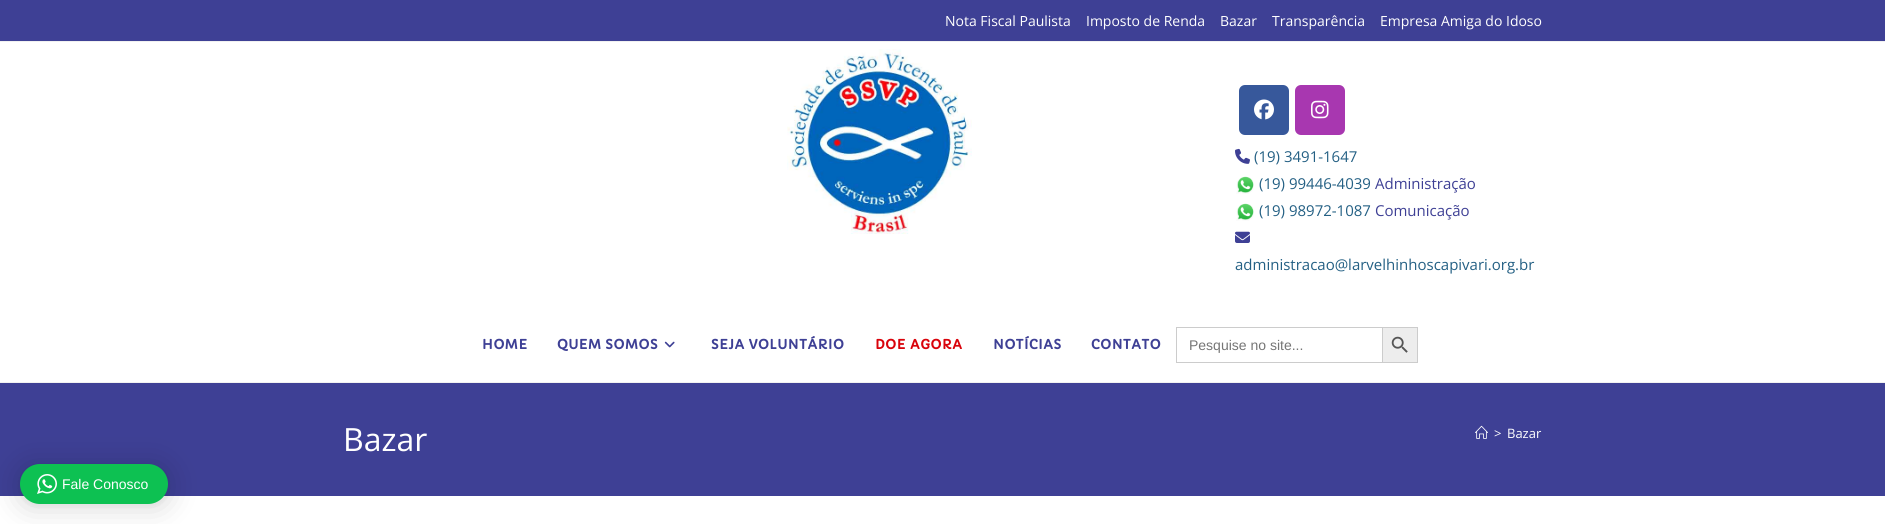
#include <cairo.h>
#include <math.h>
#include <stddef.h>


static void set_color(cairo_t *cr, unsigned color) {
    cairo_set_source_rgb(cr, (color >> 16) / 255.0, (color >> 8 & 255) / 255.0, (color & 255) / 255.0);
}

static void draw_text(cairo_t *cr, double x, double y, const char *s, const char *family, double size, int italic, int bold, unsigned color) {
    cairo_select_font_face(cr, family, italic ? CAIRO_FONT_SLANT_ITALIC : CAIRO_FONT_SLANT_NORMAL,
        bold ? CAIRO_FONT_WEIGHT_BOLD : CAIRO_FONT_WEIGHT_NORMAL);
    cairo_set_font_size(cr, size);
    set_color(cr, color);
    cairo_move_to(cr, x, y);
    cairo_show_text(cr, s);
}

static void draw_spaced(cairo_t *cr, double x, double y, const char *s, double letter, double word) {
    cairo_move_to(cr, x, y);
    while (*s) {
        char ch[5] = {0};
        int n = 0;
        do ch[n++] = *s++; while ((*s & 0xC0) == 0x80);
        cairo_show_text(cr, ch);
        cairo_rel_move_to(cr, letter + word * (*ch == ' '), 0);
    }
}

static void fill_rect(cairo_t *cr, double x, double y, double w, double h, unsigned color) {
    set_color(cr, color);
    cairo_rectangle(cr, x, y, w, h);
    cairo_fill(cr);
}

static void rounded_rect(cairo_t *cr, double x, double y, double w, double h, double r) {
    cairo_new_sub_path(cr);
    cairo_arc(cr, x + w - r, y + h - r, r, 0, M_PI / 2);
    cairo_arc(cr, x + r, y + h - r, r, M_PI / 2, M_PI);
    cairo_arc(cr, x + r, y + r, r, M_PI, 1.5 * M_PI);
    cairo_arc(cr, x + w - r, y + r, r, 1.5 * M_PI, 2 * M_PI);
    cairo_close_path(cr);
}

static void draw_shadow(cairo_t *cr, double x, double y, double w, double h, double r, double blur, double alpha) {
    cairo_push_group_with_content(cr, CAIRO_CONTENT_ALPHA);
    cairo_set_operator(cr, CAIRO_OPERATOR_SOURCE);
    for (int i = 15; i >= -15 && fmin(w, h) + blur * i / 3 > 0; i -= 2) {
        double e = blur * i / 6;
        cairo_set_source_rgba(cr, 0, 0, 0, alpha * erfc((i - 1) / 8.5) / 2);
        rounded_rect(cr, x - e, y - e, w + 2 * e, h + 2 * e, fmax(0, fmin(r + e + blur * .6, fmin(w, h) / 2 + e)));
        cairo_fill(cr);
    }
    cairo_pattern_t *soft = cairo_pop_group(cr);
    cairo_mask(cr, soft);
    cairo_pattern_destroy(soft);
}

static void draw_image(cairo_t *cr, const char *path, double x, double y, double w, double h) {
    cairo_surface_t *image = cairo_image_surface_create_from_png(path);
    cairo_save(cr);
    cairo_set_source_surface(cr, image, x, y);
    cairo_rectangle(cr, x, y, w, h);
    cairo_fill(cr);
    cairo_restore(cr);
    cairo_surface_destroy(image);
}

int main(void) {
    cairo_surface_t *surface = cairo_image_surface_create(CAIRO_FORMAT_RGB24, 1885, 524);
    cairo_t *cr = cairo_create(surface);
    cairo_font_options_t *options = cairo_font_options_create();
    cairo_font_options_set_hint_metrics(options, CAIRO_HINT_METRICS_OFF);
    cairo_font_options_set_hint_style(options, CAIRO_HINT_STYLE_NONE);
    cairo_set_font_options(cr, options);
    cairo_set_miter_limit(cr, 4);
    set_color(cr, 0xFFFFFF);
    cairo_paint(cr);
    fill_rect(cr, 0, 0, 1885, 41, 0x3E4095);
    fill_rect(cr, 0, 41, 1885, 1, 0xF1F1F1);
    draw_text(cr, 945, 26, "Nota Fiscal Paulista", "Open Sans", 14, 0, 0, 0xFFFFFF);
    draw_text(cr, 1086, 26, "Imposto de Renda", "Open Sans", 14, 0, 0, 0xFFFFFF);
    draw_text(cr, 1220, 26, "Bazar", "Open Sans", 14, 0, 0, 0xFFFFFF);
    draw_text(cr, 1272, 26, "Transparência", "Open Sans", 14, 0, 0, 0xFFFFFF);
    draw_text(cr, 1380, 26, "Empresa Amiga do Idoso", "Open Sans", 14, 0, 0, 0xFFFFFF);
    fill_rect(cr, 0, 382, 1885, 1, 0xF1F1F1);
    draw_image(cr, "assets/img1.png", 787, 49, 185, 185);
    set_color(cr, 0x37589B);
    rounded_rect(cr, 1239, 85, 50, 50, 6);
    cairo_fill(cr);
    draw_image(cr, "assets/img2.png", 1254, 99, 20, 21);
    set_color(cr, 0xA837B0);
    rounded_rect(cr, 1295, 85, 50, 50, 6);
    cairo_fill(cr);
    draw_image(cr, "assets/img3.png", 1311, 100, 18, 19);
    draw_image(cr, "assets/img4.png", 1235, 148, 15, 16);
    draw_text(cr, 1254, 162, "(19) 3491-1647", "Open Sans", 15, 0, 0, 0x246084);
    draw_image(cr, "assets/img5.png", 1236, 176, 18, 18);
    draw_text(cr, 1259, 189, "(19) 99446-4039", "Open Sans", 15, 0, 0, 0x246084);
    draw_text(cr, 1375, 189, "Administração", "Open Sans", 15, 0, 0, 0x3E4095);
    draw_image(cr, "assets/img5.png", 1236, 203, 18, 18);
    draw_text(cr, 1259, 216, "(19) 98972-1087", "Open Sans", 15, 0, 0, 0x246084);
    draw_text(cr, 1375, 216, "Comunicação", "Open Sans", 15, 0, 0, 0x3E4095);
    draw_image(cr, "assets/img6.png", 1235, 231, 15, 12);
    draw_text(cr, 1235, 270, "administracao@larvelhinhoscapivari.org.br", "Open Sans", 15, 0, 0, 0x246084);
    cairo_select_font_face(cr, "Capriola", CAIRO_FONT_SLANT_NORMAL, CAIRO_FONT_WEIGHT_BOLD);
    cairo_set_font_size(cr, 13);
    set_color(cr, 0x3E4095);
    draw_spaced(cr, 482, 349, "HOME", 0.6, 0);
    draw_spaced(cr, 557, 349, "QUEM SOMOS", 0.6, 0);
    draw_image(cr, "assets/img7.png", 664, 341, 11, 7);
    draw_spaced(cr, 711, 349, "SEJA VOLUNTÁRIO", 0.6, 0);
    set_color(cr, 0xD9030B);
    draw_spaced(cr, 875, 349, "DOE AGORA", 0.6, 0);
    set_color(cr, 0x3E4095);
    draw_spaced(cr, 993, 349, "NOTÍCIAS", 0.6, 0);
    draw_spaced(cr, 1091, 349, "CONTATO", 0.6, 0);
    fill_rect(cr, 1176, 327, 206, 1, 0xCCCCCC);
    fill_rect(cr, 1176, 362, 206, 1, 0xCCCCCC);
    fill_rect(cr, 1176, 327, 1, 36, 0xCCCCCC);
    draw_text(cr, 1189, 350, "Pesquise no site...", "Liberation Sans", 14, 0, 0, 0x757575);
    set_color(cr, 0xEDEDED);
    cairo_rectangle(cr, 1382.5, 327.5, 35, 35);
    cairo_fill_preserve(cr);
    set_color(cr, 0xCCCCCC);
    cairo_set_line_width(cr, 1);
    cairo_stroke(cr);
    draw_image(cr, "assets/img8.png", 1391, 336, 17, 17);
    fill_rect(cr, 0, 383, 1885, 113, 0x3E4095);
    draw_text(cr, 343, 451, "Bazar", "Open Sans", 32, 0, 0, 0xFFFFFF);
    draw_image(cr, "assets/img9.png", 1475, 425, 13, 14);
    draw_text(cr, 1494, 438, ">", "Open Sans", 13, 0, 0, 0xFFFFFF);
    draw_text(cr, 1507, 438, "Bazar", "Open Sans", 13, 0, 0, 0xFFFFFF);
    set_color(cr, 0x000000);
    draw_shadow(cr, 20, 466, 148, 40, 20, 16, 0.16);
    draw_shadow(cr, 20, 465, 148, 40, 20, 3, 0.06);
    set_color(cr, 0x0DC152);
    rounded_rect(cr, 20, 464, 148, 40, 20);
    cairo_fill(cr);
    draw_image(cr, "assets/img10.png", 37, 474, 20, 20);
    draw_text(cr, 62, 489, "Fale Conosco", "Liberation Sans", 14, 0, 0, 0xFFFFFF);
    cairo_surface_write_to_png(surface, "output.png");
    cairo_font_options_destroy(options);
    cairo_destroy(cr);
    cairo_surface_destroy(surface);
    return 0;
}
